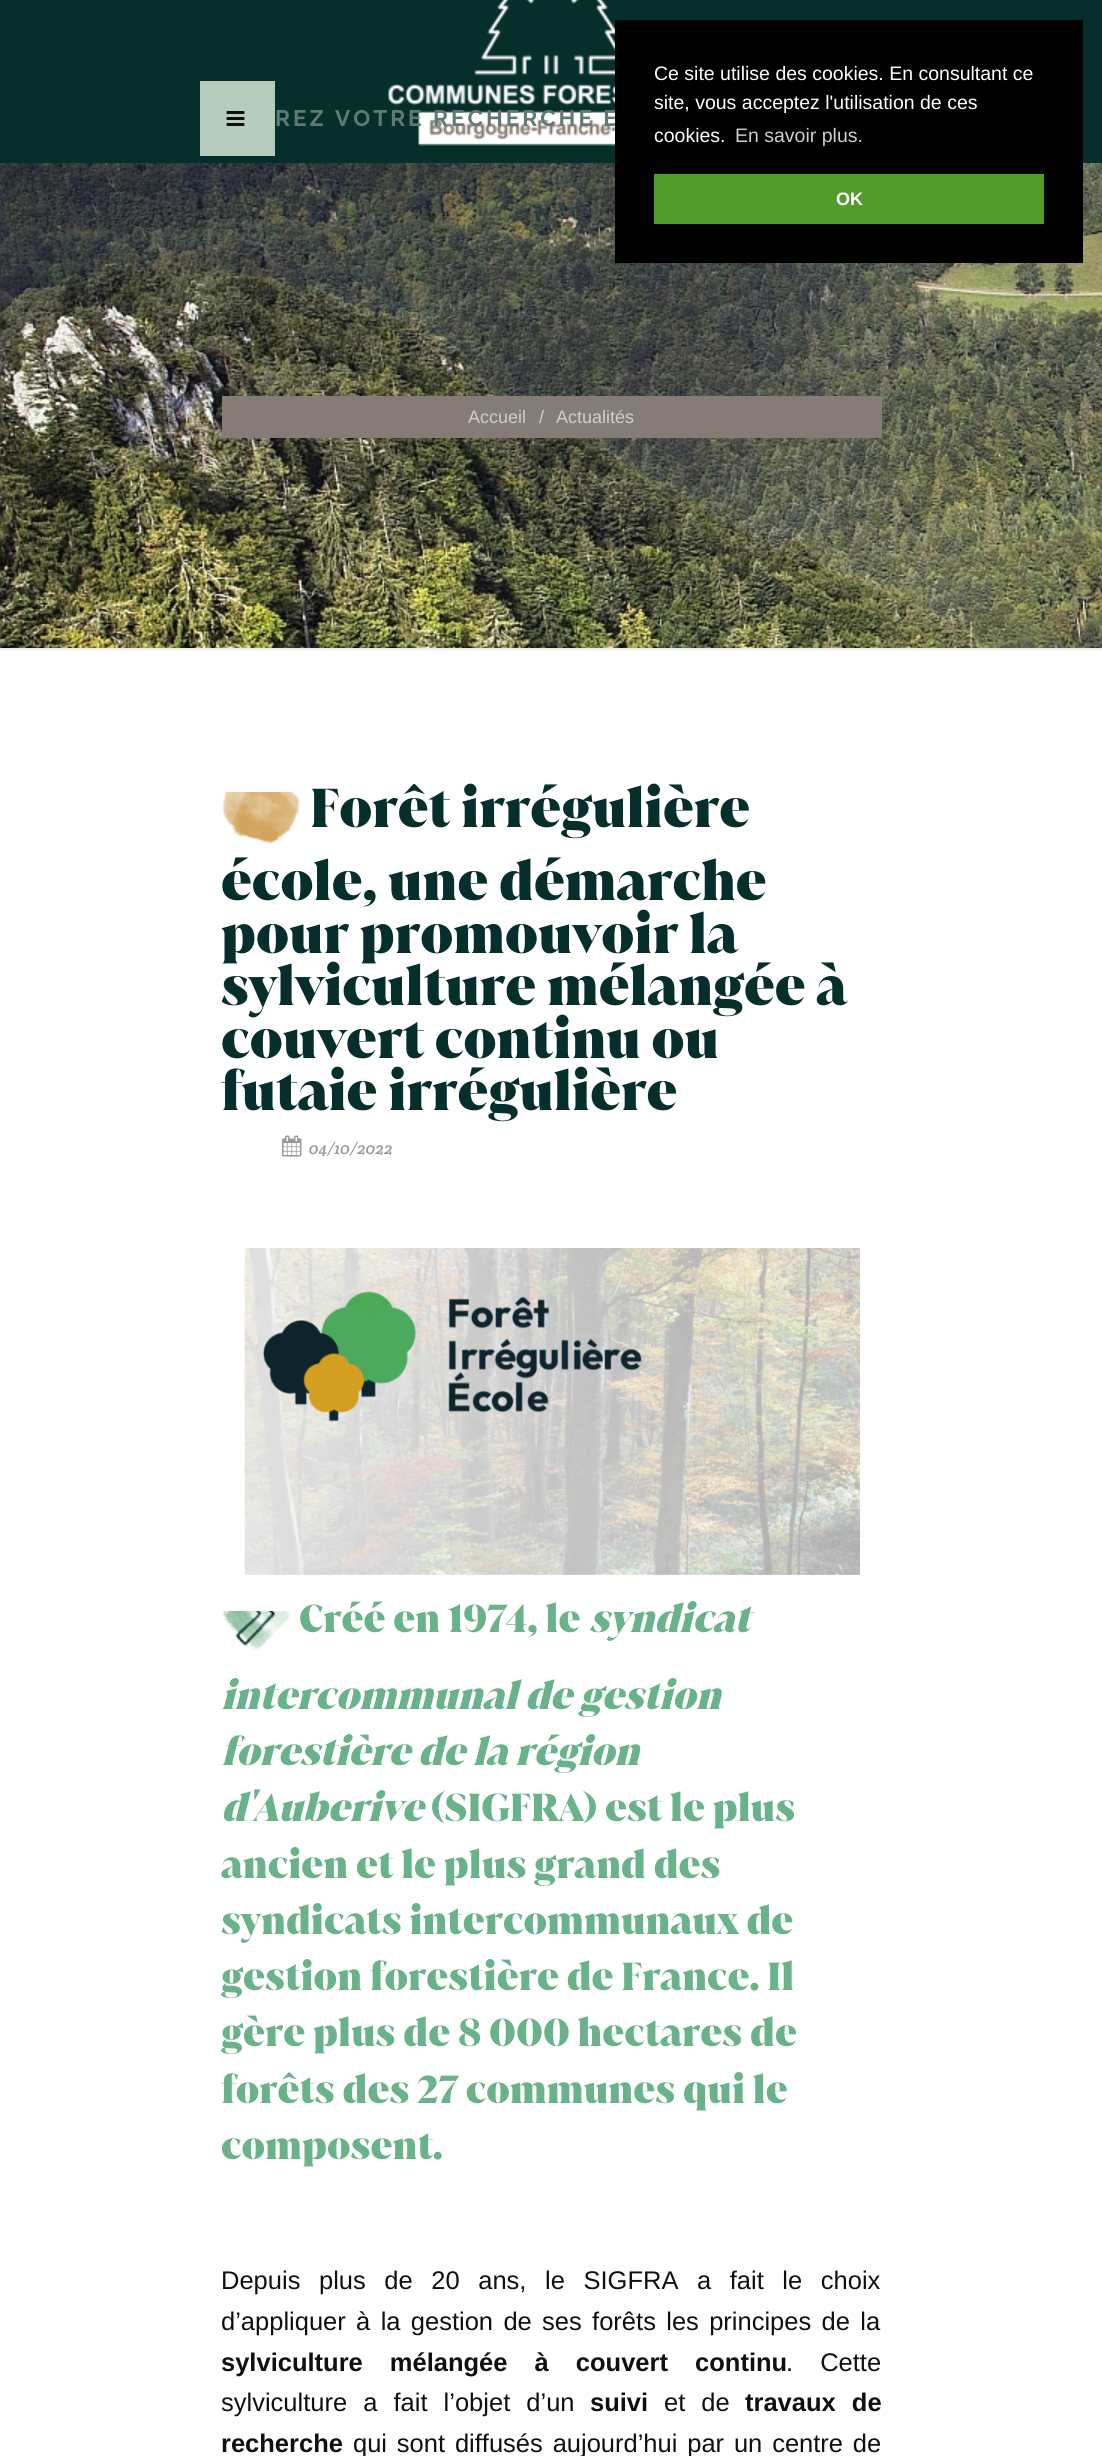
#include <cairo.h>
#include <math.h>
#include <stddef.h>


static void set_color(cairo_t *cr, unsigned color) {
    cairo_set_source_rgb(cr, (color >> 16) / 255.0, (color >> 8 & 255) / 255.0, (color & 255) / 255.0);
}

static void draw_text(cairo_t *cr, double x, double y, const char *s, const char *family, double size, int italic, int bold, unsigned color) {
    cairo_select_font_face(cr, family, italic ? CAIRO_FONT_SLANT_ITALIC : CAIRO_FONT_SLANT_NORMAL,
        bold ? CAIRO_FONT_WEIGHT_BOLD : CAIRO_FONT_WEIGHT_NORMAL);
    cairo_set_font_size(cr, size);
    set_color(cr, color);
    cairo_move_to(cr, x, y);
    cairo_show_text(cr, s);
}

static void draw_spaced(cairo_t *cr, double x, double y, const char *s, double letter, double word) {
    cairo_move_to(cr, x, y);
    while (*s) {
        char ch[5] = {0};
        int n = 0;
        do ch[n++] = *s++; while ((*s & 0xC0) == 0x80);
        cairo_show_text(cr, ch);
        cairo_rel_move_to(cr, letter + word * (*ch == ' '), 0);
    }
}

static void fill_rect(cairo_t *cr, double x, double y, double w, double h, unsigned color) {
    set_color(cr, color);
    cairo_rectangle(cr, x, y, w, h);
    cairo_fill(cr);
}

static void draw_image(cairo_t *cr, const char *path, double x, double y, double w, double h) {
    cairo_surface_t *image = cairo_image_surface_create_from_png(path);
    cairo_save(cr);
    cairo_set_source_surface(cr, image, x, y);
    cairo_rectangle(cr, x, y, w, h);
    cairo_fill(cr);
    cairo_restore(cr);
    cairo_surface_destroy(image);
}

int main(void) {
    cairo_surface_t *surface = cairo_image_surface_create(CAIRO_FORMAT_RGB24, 1102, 2456);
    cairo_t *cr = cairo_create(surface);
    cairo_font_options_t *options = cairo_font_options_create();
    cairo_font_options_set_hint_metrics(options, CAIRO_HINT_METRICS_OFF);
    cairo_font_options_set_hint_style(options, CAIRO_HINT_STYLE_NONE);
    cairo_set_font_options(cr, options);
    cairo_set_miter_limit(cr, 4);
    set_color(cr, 0xFFFFFF);
    cairo_paint(cr);
    fill_rect(cr, 0, 0, 1102, 163, 0x062F2C);
    draw_image(cr, "assets/img1.png", 388, 0, 227, 146);
    cairo_select_font_face(cr, "Raleway", CAIRO_FONT_SLANT_NORMAL, CAIRO_FONT_WEIGHT_BOLD);
    cairo_set_font_size(cr, 22.5);
    set_color(cr, 0x607977);
    draw_spaced(cr, 275, 126, "REZ VOTRE RECHERCHE E", 3, 0);
    draw_image(cr, "assets/img3.png", 0, 163, 1102, 485);
    fill_rect(cr, 615, 20, 468, 243, 0x000000);
    draw_text(cr, 654, 80, "Ce site utilise des cookies. En consultant ce", "Liberation Sans", 19.5, 0, 0, 0xFFFFFF);
    draw_text(cr, 654, 109, "site, vous acceptez l'utilisation de ces", "Liberation Sans", 19.5, 0, 0, 0xFFFFFF);
    draw_text(cr, 654, 142, "cookies.", "Liberation Sans", 19.5, 0, 0, 0xFFFFFF);
    draw_text(cr, 735, 142, "En savoir plus.", "Liberation Sans", 19.5, 0, 0, 0xCECECE);
    fill_rect(cr, 654, 174, 390, 50, 0x539C2B);
    draw_text(cr, 836, 205, "OK", "Liberation Sans", 18, 0, 1, 0xFFFFFF);
    fill_rect(cr, 200, 81, 75, 75, 0xB6CDBD);
    draw_image(cr, "assets/img2.png", 226, 111, 19, 15);
    fill_rect(cr, 0, 648, 1102, 2, 0xEEEEEE);
    fill_rect(cr, 222, 396, 660, 42, 0x867C77);
    draw_text(cr, 468, 423, "Accueil", "Liberation Sans", 18, 0, 0, 0xCECECE);
    draw_text(cr, 539, 423, "/", "Liberation Sans", 18, 0, 0, 0xCECECE);
    draw_text(cr, 556, 423, "Actualités", "Liberation Sans", 18, 0, 0, 0xCECECE);
    draw_image(cr, "assets/img4.png", 222, 792, 78, 54);
    draw_text(cr, 310, 827, "Forêt irrégulière", "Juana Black", 52.5, 0, 0, 0x062F2C);
    draw_text(cr, 221, 900, "école, une démarche", "Juana Black", 52.5, 0, 0, 0x062F2C);
    draw_text(cr, 221, 953, "pour promouvoir la", "Juana Black", 52.5, 0, 0, 0x062F2C);
    draw_text(cr, 221, 1005, "sylviculture mélangée à", "Juana Black", 52.5, 0, 0, 0x062F2C);
    draw_text(cr, 221, 1058, "couvert continu ou", "Juana Black", 52.5, 0, 0, 0x062F2C);
    draw_text(cr, 221, 1110, "futaie irrégulière", "Juana Black", 52.5, 0, 0, 0x062F2C);
    draw_image(cr, "assets/img5.png", 282, 1135, 20, 22);
    draw_text(cr, 309, 1154, "04/10/2022", "Crete Round", 16.5, 1, 0, 0x999999);
    draw_image(cr, "assets/img6.png", 244, 1248, 616, 327);
    draw_image(cr, "assets/img7.png", 222, 1611, 68, 39);
    draw_text(cr, 299, 1632, "Créé en 1974, le", "Juana Black", 37.5, 0, 0, 0x6AB28A);
    draw_text(cr, 589, 1632, "syndicat", "Juana Black", 37.5, 1, 0, 0x6AB28A);
    draw_text(cr, 221, 1709, "intercommunal de gestion", "Juana Black", 37.5, 1, 0, 0x6AB28A);
    draw_text(cr, 221, 1765, "forestière de la région", "Juana Black", 37.5, 1, 0, 0x6AB28A);
    draw_text(cr, 221, 1821, "d'Auberive", "Juana Black", 37.5, 1, 0, 0x6AB28A);
    draw_text(cr, 431, 1821, "(SIGFRA) est le plus", "Juana Black", 37.5, 0, 0, 0x6AB28A);
    draw_text(cr, 221, 1878, "ancien et le plus grand des", "Juana Black", 37.5, 0, 0, 0x6AB28A);
    draw_text(cr, 221, 1934, "syndicats intercommunaux de", "Juana Black", 37.5, 0, 0, 0x6AB28A);
    draw_text(cr, 221, 1990, "gestion forestière de France. Il", "Juana Black", 37.5, 0, 0, 0x6AB28A);
    draw_text(cr, 221, 2046, "gère plus de 8 000 hectares de", "Juana Black", 37.5, 0, 0, 0x6AB28A);
    draw_text(cr, 221, 2103, "forêts des 27 communes qui le", "Juana Black", 37.5, 0, 0, 0x6AB28A);
    draw_text(cr, 221, 2159, "composent.", "Juana Black", 37.5, 0, 0, 0x6AB28A);
    cairo_select_font_face(cr, "Liberation Sans", CAIRO_FONT_SLANT_NORMAL, CAIRO_FONT_WEIGHT_NORMAL);
    cairo_set_font_size(cr, 25.5);
    set_color(cr, 0x101010);
    draw_spaced(cr, 221, 2289, "Depuis plus de 20 ans, le SIGFRA a fait le choix", 0, 11.5);
    draw_spaced(cr, 221, 2330, "d’appliquer à la gestion de ses forêts les principes de la", 0, 3.25);
    cairo_select_font_face(cr, "Liberation Sans", CAIRO_FONT_SLANT_NORMAL, CAIRO_FONT_WEIGHT_BOLD);
    draw_spaced(cr, 221, 2371, "sylviculture mélangée à couvert continu", 0, 20);
    cairo_select_font_face(cr, "Liberation Sans", CAIRO_FONT_SLANT_NORMAL, CAIRO_FONT_WEIGHT_NORMAL);
    draw_spaced(cr, 786, 2371, ". Cette", 0, 20);
    draw_spaced(cr, 221, 2411, "sylviculture a fait l’objet d’un", 0, 9);
    draw_text(cr, 590, 2411, "suivi", "Liberation Sans", 25.5, 0, 1, 0x101010);
    cairo_select_font_face(cr, "Liberation Sans", CAIRO_FONT_SLANT_NORMAL, CAIRO_FONT_WEIGHT_NORMAL);
    draw_spaced(cr, 664, 2411, "et de", 0, 9);
    cairo_select_font_face(cr, "Liberation Sans", CAIRO_FONT_SLANT_NORMAL, CAIRO_FONT_WEIGHT_BOLD);
    draw_spaced(cr, 745, 2411, "travaux de", 0, 9);
    draw_text(cr, 221, 2452, "recherche", "Liberation Sans", 25.5, 0, 1, 0x101010);
    cairo_select_font_face(cr, "Liberation Sans", CAIRO_FONT_SLANT_NORMAL, CAIRO_FONT_WEIGHT_NORMAL);
    draw_spaced(cr, 353, 2452, "qui sont diffusés aujourd’hui par un centre de", 0, 2.75);
    cairo_surface_write_to_png(surface, "output.png");
    cairo_font_options_destroy(options);
    cairo_destroy(cr);
    cairo_surface_destroy(surface);
    return 0;
}
